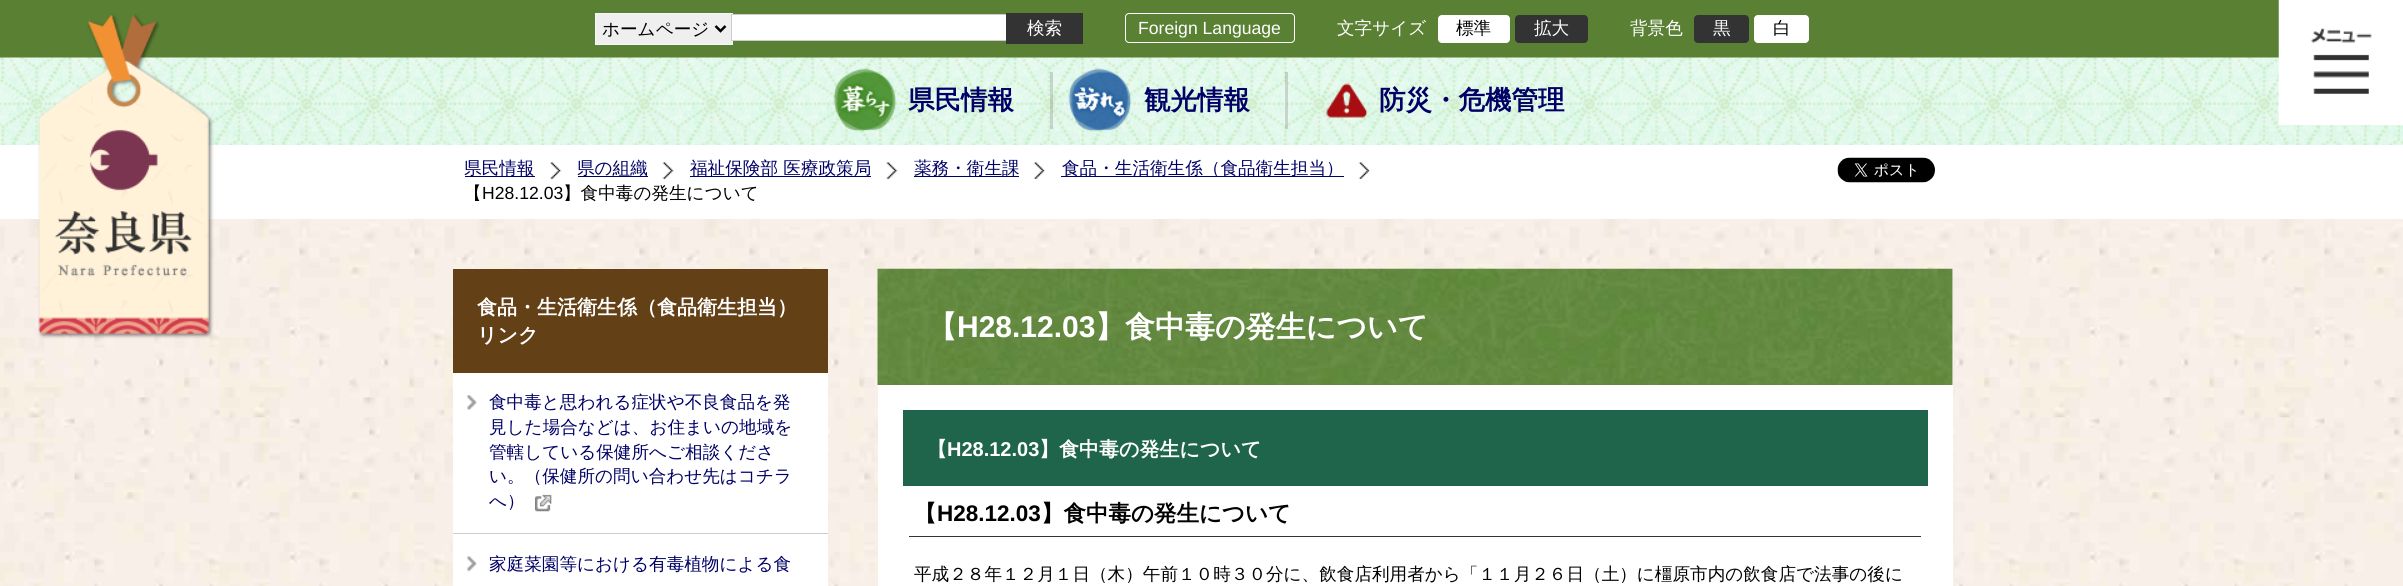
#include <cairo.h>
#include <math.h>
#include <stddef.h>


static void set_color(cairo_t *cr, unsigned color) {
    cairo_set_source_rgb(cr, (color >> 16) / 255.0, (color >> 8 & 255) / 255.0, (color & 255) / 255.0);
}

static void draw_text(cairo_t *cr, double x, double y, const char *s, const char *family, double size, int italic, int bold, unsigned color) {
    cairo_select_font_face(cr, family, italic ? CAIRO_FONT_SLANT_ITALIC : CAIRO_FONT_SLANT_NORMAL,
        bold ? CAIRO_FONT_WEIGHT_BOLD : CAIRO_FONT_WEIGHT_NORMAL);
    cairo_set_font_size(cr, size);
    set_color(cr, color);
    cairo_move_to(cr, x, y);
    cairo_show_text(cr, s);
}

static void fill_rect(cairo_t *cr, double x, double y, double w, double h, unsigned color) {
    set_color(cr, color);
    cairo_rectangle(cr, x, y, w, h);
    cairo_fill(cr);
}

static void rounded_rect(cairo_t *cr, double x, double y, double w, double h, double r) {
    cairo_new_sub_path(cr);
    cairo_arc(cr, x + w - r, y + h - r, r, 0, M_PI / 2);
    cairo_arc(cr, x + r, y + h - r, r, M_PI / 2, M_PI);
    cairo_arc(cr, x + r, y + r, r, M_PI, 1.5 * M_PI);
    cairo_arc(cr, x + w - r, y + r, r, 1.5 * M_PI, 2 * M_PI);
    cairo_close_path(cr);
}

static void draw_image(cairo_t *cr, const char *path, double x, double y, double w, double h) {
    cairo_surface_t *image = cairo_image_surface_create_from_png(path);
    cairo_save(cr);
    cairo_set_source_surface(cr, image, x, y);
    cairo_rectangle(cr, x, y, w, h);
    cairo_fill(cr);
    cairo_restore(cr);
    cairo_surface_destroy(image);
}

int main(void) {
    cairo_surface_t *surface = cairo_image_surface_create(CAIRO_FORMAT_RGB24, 2403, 586);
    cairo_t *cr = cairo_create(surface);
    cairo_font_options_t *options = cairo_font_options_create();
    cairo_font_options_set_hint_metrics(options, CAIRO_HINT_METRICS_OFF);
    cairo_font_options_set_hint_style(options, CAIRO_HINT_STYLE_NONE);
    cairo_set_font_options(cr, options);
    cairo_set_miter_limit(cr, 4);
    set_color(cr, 0xFFFFFF);
    cairo_paint(cr);
    draw_image(cr, "assets/img1.png", 0, 219, 2403, 367);
    fill_rect(cr, 0, 0, 2279, 58, 0x5A8133);
    draw_image(cr, "assets/img3.png", 0, 57, 2403, 88);
    draw_image(cr, "assets/img2.png", 38, 14, 176, 325);
    set_color(cr, 0xEFEFEF);
    cairo_rectangle(cr, 595.5, 13.5, 137, 31);
    cairo_fill_preserve(cr);
    set_color(cr, 0xF0F8FF);
    cairo_set_line_width(cr, 1);
    cairo_stroke(cr);
    cairo_new_path(cr);
    cairo_move_to(cr, 715.5, 26);
    cairo_line_to(cr, 720.5, 31);
    cairo_line_to(cr, 725.5, 26);
    set_color(cr, 0x000000);
    cairo_set_line_width(cr, 2.5);
    cairo_stroke(cr);
    draw_text(cr, 602, 35, "ホームページ", "WenQuanYi Zen Hei Medium", 17.6, 0, 0, 0x000000);
    fill_rect(cr, 732, 15, 274, 25, 0xFFFFFF);
    cairo_rectangle(cr, 731.5, 14.5, 277, 26);
    set_color(cr, 0xCCCCCC);
    cairo_set_line_width(cr, 1);
    cairo_stroke(cr);
    fill_rect(cr, 1006, 13, 77, 31, 0x333333);
    draw_text(cr, 1027, 34, "検索", "WenQuanYi Zen Hei Medium", 17.6, 0, 0, 0xFFFFFF);
    rounded_rect(cr, 1125.5, 13.5, 169, 29, 3.5);
    cairo_stroke(cr);
    draw_text(cr, 1138, 34, "Foreign Language", "Liberation Sans", 17.6, 0, 0, 0xFFFFFF);
    draw_text(cr, 1337, 34, "文字サイズ", "WenQuanYi Zen Hei Medium", 17.6, 0, 0, 0xFFFFFF);
    rounded_rect(cr, 1438, 15, 72, 28, 4);
    cairo_fill(cr);
    draw_text(cr, 1456, 34, "標準", "WenQuanYi Zen Hei Medium", 17.6, 0, 0, 0x000000);
    set_color(cr, 0x333333);
    rounded_rect(cr, 1515, 15, 73, 28, 4);
    cairo_fill(cr);
    draw_text(cr, 1534, 34, "拡大", "WenQuanYi Zen Hei Medium", 17.6, 0, 0, 0xFFFFFF);
    draw_text(cr, 1630, 34, "背景色", "WenQuanYi Zen Hei Medium", 17.6, 0, 0, 0xFFFFFF);
    set_color(cr, 0x333333);
    rounded_rect(cr, 1694, 15, 55, 28, 4);
    cairo_fill(cr);
    draw_text(cr, 1713, 34, "黒", "WenQuanYi Zen Hei Medium", 17.6, 0, 0, 0xFFFFFF);
    rounded_rect(cr, 1754, 15, 55, 28, 4);
    cairo_fill(cr);
    draw_text(cr, 1773, 34, "白", "WenQuanYi Zen Hei Medium", 17.6, 0, 0, 0x000000);
    draw_image(cr, "assets/img4.png", 833, 68, 64, 64);
    draw_text(cr, 908, 109, "県民情報", "WenQuanYi Zen Hei", 26.5, 0, 1, 0x000066);
    cairo_set_source_rgba(cr, 0.408, 0.408, 0.408, 0.25);
    cairo_rectangle(cr, 1050, 72, 3, 57);
    cairo_fill(cr);
    draw_image(cr, "assets/img5.png", 1068, 68, 64, 64);
    draw_text(cr, 1144, 109, "観光情報", "WenQuanYi Zen Hei", 26.5, 0, 1, 0x000066);
    cairo_set_source_rgba(cr, 0.408, 0.408, 0.408, 0.25);
    cairo_rectangle(cr, 1285, 72, 3, 57);
    cairo_fill(cr);
    draw_image(cr, "assets/img6.png", 1326, 83, 42, 35);
    draw_text(cr, 1379, 109, "防災・危機管理", "WenQuanYi Zen Hei", 26.5, 0, 1, 0x000066);
    draw_image(cr, "assets/img7.png", 2278, 0, 125, 125);
    fill_rect(cr, 465, 176, 70, 1, 0x000066);
    draw_text(cr, 464, 174, "県民情報", "WenQuanYi Zen Hei Medium", 17.6, 0, 0, 0x000066);
    draw_image(cr, "assets/img8.png", 550, 162, 12, 17);
    fill_rect(cr, 578, 176, 70, 1, 0x000066);
    draw_text(cr, 577, 174, "県の組織", "WenQuanYi Zen Hei Medium", 17.6, 0, 0, 0x000066);
    draw_image(cr, "assets/img9.png", 662, 162, 12, 17);
    fill_rect(cr, 690, 176, 181, 1, 0x000066);
    draw_text(cr, 690, 174, "福祉保険部 医療政策局", "WenQuanYi Zen Hei Medium", 17.6, 0, 0, 0x000066);
    draw_image(cr, "assets/img10.png", 886, 162, 12, 17);
    fill_rect(cr, 914, 176, 105, 1, 0x000066);
    draw_text(cr, 914, 174, "薬務・衛生課", "WenQuanYi Zen Hei Medium", 17.6, 0, 0, 0x000066);
    draw_image(cr, "assets/img11.png", 1033, 162, 12, 17);
    fill_rect(cr, 1061, 176, 283, 1, 0x000066);
    draw_text(cr, 1062, 174, "食品・生活衛生係（食品衛生担当）", "WenQuanYi Zen Hei Medium", 17.6, 0, 0, 0x000066);
    draw_image(cr, "assets/img12.png", 1358, 162, 12, 17);
    draw_text(cr, 464, 199, "【", "WenQuanYi Zen Hei Medium", 17.6, 0, 0, 0x000000);
    draw_text(cr, 482, 199, "H28.12.03", "Liberation Sans", 17.6, 0, 0, 0x000000);
    draw_text(cr, 563, 199, "】食中毒の発生について", "WenQuanYi Zen Hei Medium", 17.6, 0, 0, 0x000000);
    draw_image(cr, "assets/img13.png", 1837, 157, 98, 26);
    fill_rect(cr, 453, 373, 375, 213, 0xFFFFFF);
    fill_rect(cr, 453, 269, 375, 104, 0x634016);
    draw_text(cr, 477, 314, "食品・生活衛生係（食品衛生担当）", "WenQuanYi Zen Hei", 20, 0, 1, 0xFFFFFF);
    draw_text(cr, 477, 342, "リンク", "WenQuanYi Zen Hei", 20, 0, 1, 0xFFFFFF);
    fill_rect(cr, 453, 533, 375, 1, 0xCCCCCC);
    draw_image(cr, "assets/img14.png", 467, 395, 10, 15);
    draw_text(cr, 489, 408, "食中毒と思われる症状や不良食品を発", "WenQuanYi Zen Hei Medium", 17.6, 0, 0, 0x000066);
    draw_text(cr, 489, 433, "見した場合などは、お住まいの地域を", "WenQuanYi Zen Hei Medium", 17.6, 0, 0, 0x000066);
    draw_text(cr, 489, 458, "管轄している保健所へご相談くださ", "WenQuanYi Zen Hei Medium", 17.6, 0, 0, 0x000066);
    draw_text(cr, 489, 482, "い。（保健所の問い合わせ先はコチラ", "WenQuanYi Zen Hei Medium", 17.6, 0, 0, 0x000066);
    draw_text(cr, 489, 507, "へ）", "WenQuanYi Zen Hei Medium", 17.6, 0, 0, 0x000066);
    draw_image(cr, "assets/img15.png", 535, 494, 17, 18);
    draw_image(cr, "assets/img16.png", 467, 556, 10, 16);
    draw_text(cr, 489, 570, "家庭菜園等における有毒植物による食", "WenQuanYi Zen Hei Medium", 17.6, 0, 0, 0x000066);
    fill_rect(cr, 878, 269, 1075, 317, 0xFFFFFF);
    draw_image(cr, "assets/img17.png", 877, 268, 1076, 117);
    draw_text(cr, 927, 337, "【", "WenQuanYi Zen Hei", 30, 0, 1, 0xFFFFFF);
    draw_text(cr, 957, 337, "H28.12.03", "Liberation Sans", 30, 0, 1, 0xFFFFFF);
    draw_text(cr, 1095, 337, "】食中毒の発生について", "WenQuanYi Zen Hei", 30, 0, 1, 0xFFFFFF);
    fill_rect(cr, 903, 410, 1025, 76, 0x1F654B);
    draw_text(cr, 927, 456, "【", "WenQuanYi Zen Hei", 20, 0, 1, 0xFFFFFF);
    draw_text(cr, 947, 456, "H28.12.03", "Liberation Sans", 20, 0, 1, 0xFFFFFF);
    draw_text(cr, 1039, 456, "】食中毒の発生について", "WenQuanYi Zen Hei", 20, 0, 1, 0xFFFFFF);
    fill_rect(cr, 909, 536, 1012, 1, 0x333333);
    draw_text(cr, 914, 521, "【", "WenQuanYi Zen Hei", 22.5, 0, 1, 0x000000);
    draw_text(cr, 937, 521, "H28.12.03", "Liberation Sans", 22.5, 0, 1, 0x000000);
    draw_text(cr, 1041, 521, "】食中毒の発生について", "WenQuanYi Zen Hei", 22.5, 0, 1, 0x000000);
    draw_text(cr, 914, 580, "平成２８年１２月１日（木）午前１０時３０分に、飲食店利用者から「１１月２６日（土）に橿原市内の飲食店で法事の後に", "WenQuanYi Zen Hei Medium", 17.6, 0, 0, 0x000000);
    cairo_surface_write_to_png(surface, "output.png");
    cairo_font_options_destroy(options);
    cairo_destroy(cr);
    cairo_surface_destroy(surface);
    return 0;
}
